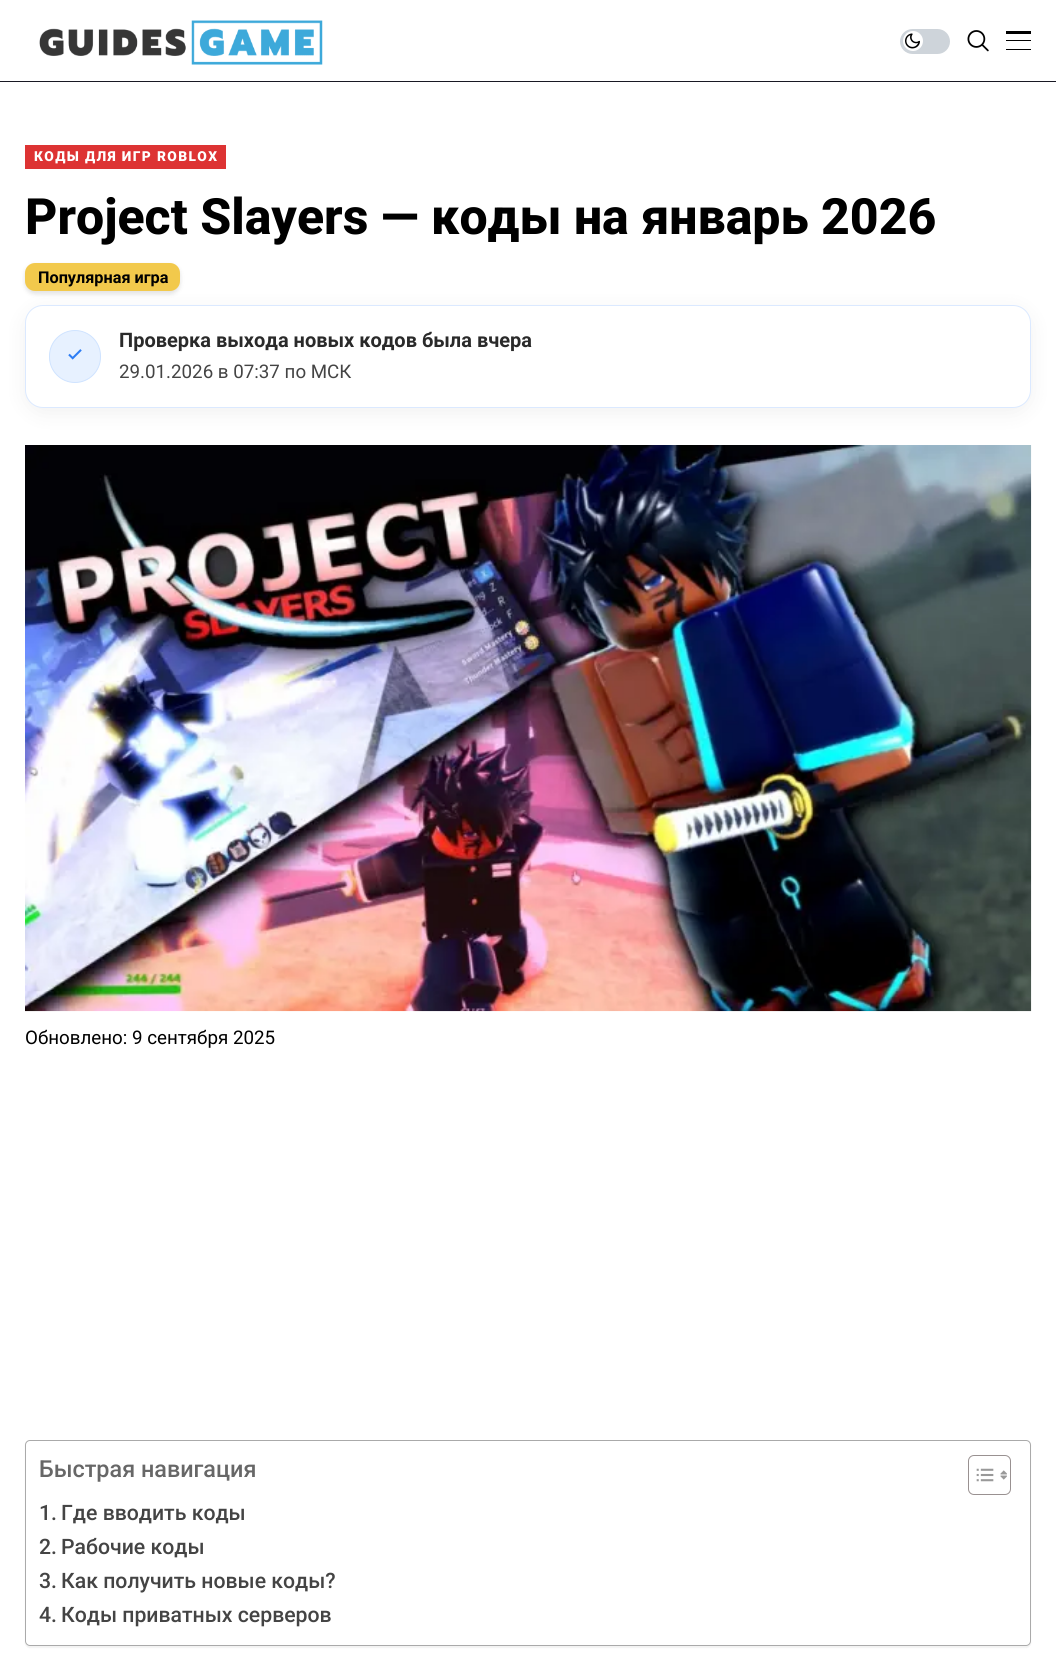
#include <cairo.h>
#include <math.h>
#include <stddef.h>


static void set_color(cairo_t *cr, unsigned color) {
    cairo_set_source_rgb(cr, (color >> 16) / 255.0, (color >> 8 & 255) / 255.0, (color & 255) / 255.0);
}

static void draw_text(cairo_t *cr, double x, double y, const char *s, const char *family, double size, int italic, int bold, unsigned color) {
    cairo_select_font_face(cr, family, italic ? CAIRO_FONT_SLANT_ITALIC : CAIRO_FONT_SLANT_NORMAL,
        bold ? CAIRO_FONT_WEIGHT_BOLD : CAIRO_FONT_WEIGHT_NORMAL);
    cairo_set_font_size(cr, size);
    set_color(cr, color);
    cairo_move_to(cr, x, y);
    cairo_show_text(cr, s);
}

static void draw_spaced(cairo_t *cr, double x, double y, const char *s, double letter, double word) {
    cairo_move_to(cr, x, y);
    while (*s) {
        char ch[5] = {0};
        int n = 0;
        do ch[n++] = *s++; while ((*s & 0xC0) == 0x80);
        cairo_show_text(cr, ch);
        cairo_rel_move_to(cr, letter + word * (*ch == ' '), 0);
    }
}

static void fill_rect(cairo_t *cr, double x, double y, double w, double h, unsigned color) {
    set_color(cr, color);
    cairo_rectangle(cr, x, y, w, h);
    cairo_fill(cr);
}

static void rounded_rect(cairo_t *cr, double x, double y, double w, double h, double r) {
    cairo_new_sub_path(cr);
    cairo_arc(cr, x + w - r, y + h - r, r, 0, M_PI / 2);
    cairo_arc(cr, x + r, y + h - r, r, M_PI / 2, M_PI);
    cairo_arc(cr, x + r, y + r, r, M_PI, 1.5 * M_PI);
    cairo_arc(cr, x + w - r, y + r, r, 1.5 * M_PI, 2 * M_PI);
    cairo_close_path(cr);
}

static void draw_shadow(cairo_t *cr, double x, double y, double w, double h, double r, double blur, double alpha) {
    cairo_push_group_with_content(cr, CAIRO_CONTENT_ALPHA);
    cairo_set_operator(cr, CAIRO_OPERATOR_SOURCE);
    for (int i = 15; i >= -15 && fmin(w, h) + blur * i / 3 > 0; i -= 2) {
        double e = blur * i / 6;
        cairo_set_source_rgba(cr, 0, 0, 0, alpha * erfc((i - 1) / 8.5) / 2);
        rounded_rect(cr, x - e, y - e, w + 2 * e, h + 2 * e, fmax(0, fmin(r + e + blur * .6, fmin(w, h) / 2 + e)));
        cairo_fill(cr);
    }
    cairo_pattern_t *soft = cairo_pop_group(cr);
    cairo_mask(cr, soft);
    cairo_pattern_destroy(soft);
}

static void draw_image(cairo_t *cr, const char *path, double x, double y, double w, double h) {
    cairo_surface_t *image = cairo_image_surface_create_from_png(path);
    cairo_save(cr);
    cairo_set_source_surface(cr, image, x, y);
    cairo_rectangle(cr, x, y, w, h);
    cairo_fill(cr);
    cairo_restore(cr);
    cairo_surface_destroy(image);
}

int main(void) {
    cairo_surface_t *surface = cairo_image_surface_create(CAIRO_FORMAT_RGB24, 1056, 1677);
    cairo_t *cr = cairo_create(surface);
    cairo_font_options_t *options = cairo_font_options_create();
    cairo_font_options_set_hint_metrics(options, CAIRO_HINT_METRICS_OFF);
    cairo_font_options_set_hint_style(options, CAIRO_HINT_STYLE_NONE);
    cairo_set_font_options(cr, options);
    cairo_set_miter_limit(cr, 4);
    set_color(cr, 0xFFFFFF);
    cairo_paint(cr);
    fill_rect(cr, 0, 81, 1056, 1, 0x181823);
    draw_image(cr, "assets/img1.png", 39, 20, 284, 45);
    set_color(cr, 0xCED4DA);
    rounded_rect(cr, 900, 29, 50, 25, 12.5);
    cairo_fill(cr);
    set_color(cr, 0xFFFFFF);
    cairo_arc(cr, 913, 41, 10, 0, 2 * M_PI);
    cairo_fill(cr);
    draw_image(cr, "assets/img2.png", 905, 33, 15, 16);
    draw_image(cr, "assets/img3.png", 967, 30, 22, 22);
    fill_rect(cr, 1006, 31, 25, 3, 0x000000);
    fill_rect(cr, 1006, 40, 25, 1, 0x000000);
    fill_rect(cr, 1006, 49, 25, 1, 0x000000);
    fill_rect(cr, 25, 145, 201, 24, 0xDD3333);
    cairo_select_font_face(cr, "Roboto Black", CAIRO_FONT_SLANT_NORMAL, CAIRO_FONT_WEIGHT_NORMAL);
    cairo_set_font_size(cr, 13.75);
    set_color(cr, 0xFFFFFF);
    draw_spaced(cr, 34, 161, "КОДЫ ДЛЯ ИГР ROBLOX", 1.4, 0);
    draw_text(cr, 25, 234, "Project Slayers — коды на январь 2026", "Roboto ExtraBold", 50, 0, 0, 0x000000);
    set_color(cr, 0x000000);
    draw_shadow(cr, 25, 265, 155, 29, 10, 2.5, 0.12);
    draw_shadow(cr, 25, 310, 1006, 103, 18, 11, 0.06);
    set_color(cr, 0xF2C94C);
    rounded_rect(cr, 25, 263, 155, 28, 10);
    cairo_fill(cr);
    draw_text(cr, 38, 283, "Популярная игра", "Roboto", 16.25, 0, 1, 0x000000);
    set_color(cr, 0xFFFFFF);
    rounded_rect(cr, 25.5, 305.5, 1005, 102, 17.5);
    cairo_fill_preserve(cr);
    set_color(cr, 0xDBE9FF);
    cairo_set_line_width(cr, 1);
    cairo_stroke(cr);
    set_color(cr, 0xE7F1FF);
    rounded_rect(cr, 49.5, 330.5, 51, 52, 25.5);
    cairo_fill_preserve(cr);
    set_color(cr, 0xCFE3FF);
    cairo_stroke(cr);
    draw_image(cr, "assets/img4.png", 68, 349, 14, 11);
    draw_text(cr, 119, 347, "Проверка выхода новых кодов была вчера", "Roboto", 20, 0, 1, 0x2A2A2A);
    draw_text(cr, 119, 378, "29.01.2026 в 07:37 по МСК", "Roboto", 18.75, 0, 0, 0x444444);
    draw_image(cr, "assets/img5.png", 25, 445, 1007, 567);
    draw_text(cr, 25, 1044, "Обновлено: 9 сентября 2025", "Roboto", 18.75, 0, 0, 0x000000);
    cairo_save(cr);
    cairo_set_fill_rule(cr, CAIRO_FILL_RULE_EVEN_ODD);
    cairo_new_path(cr);
    cairo_move_to(cr, 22, 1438);
    cairo_line_to(cr, 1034, 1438);
    cairo_line_to(cr, 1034, 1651);
    cairo_line_to(cr, 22, 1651);
    cairo_close_path(cr);
    cairo_move_to(cr, 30, 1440);
    cairo_line_to(cr, 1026, 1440);
    cairo_curve_to(cr, 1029, 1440, 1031, 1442, 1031, 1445);
    cairo_line_to(cr, 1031, 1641);
    cairo_curve_to(cr, 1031, 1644, 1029, 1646, 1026, 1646);
    cairo_line_to(cr, 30, 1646);
    cairo_curve_to(cr, 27, 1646, 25, 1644, 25, 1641);
    cairo_line_to(cr, 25, 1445);
    cairo_curve_to(cr, 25, 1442, 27, 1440, 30, 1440);
    cairo_close_path(cr);
    cairo_clip(cr);
    set_color(cr, 0x000000);
    draw_shadow(cr, 25, 1441, 1006, 207, 5, 0.5, 0.05);
    cairo_restore(cr);
    rounded_rect(cr, 25.5, 1440.5, 1005, 205, 4.5);
    set_color(cr, 0xAAAAAA);
    cairo_stroke(cr);
    draw_text(cr, 39, 1477, "Быстрая навигация", "Roboto Medium", 23.4, 0, 0, 0x676767);
    rounded_rect(cr, 968.5, 1455.5, 42, 39, 5.5);
    set_color(cr, 0x999191);
    cairo_stroke(cr);
    draw_image(cr, "assets/img6.png", 976, 1468, 18, 14);
    draw_image(cr, "assets/img7.png", 1000, 1470, 7, 10);
    draw_text(cr, 39, 1520, "1.", "Roboto Medium", 21.25, 0, 0, 0x444444);
    draw_text(cr, 61, 1520, "Где вводить коды", "Roboto Medium", 21.25, 0, 0, 0x444444);
    draw_text(cr, 39, 1554, "2.", "Roboto Medium", 21.25, 0, 0, 0x444444);
    draw_text(cr, 61, 1554, "Рабочие коды", "Roboto Medium", 21.25, 0, 0, 0x444444);
    draw_text(cr, 39, 1588, "3.", "Roboto Medium", 21.25, 0, 0, 0x444444);
    draw_text(cr, 61, 1588, "Как получить новые коды?", "Roboto Medium", 21.25, 0, 0, 0x444444);
    draw_text(cr, 39, 1622, "4.", "Roboto Medium", 21.25, 0, 0, 0x444444);
    draw_text(cr, 61, 1622, "Коды приватных серверов", "Roboto Medium", 21.25, 0, 0, 0x444444);
    cairo_surface_write_to_png(surface, "output.png");
    cairo_font_options_destroy(options);
    cairo_destroy(cr);
    cairo_surface_destroy(surface);
    return 0;
}
